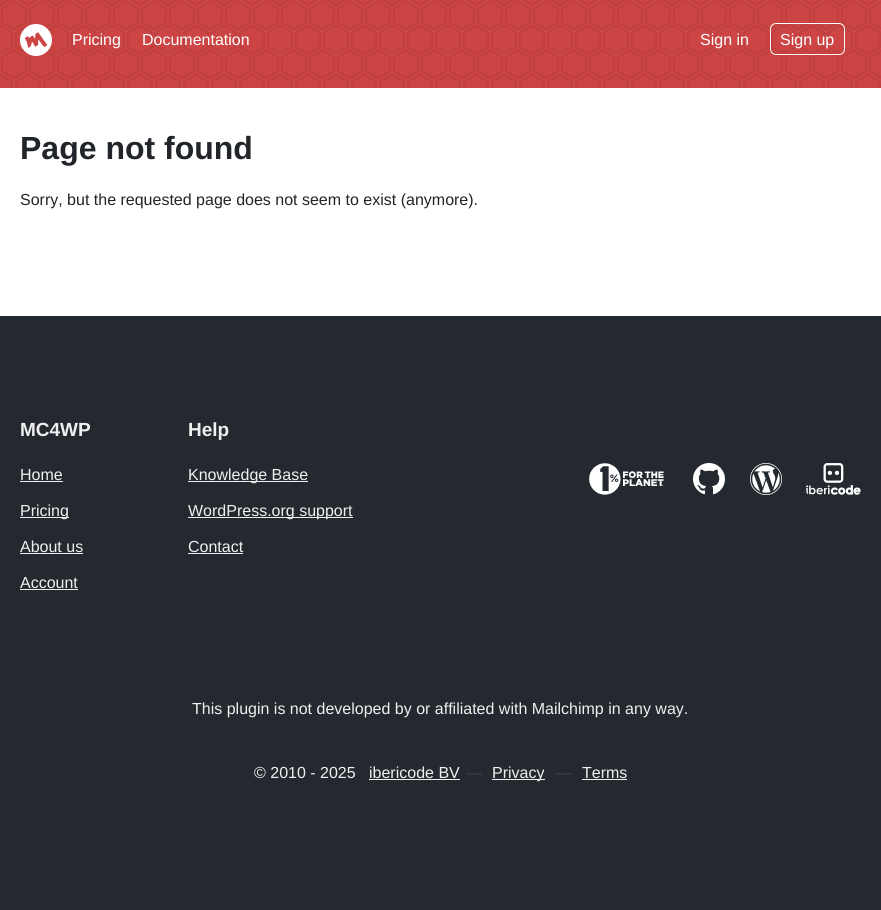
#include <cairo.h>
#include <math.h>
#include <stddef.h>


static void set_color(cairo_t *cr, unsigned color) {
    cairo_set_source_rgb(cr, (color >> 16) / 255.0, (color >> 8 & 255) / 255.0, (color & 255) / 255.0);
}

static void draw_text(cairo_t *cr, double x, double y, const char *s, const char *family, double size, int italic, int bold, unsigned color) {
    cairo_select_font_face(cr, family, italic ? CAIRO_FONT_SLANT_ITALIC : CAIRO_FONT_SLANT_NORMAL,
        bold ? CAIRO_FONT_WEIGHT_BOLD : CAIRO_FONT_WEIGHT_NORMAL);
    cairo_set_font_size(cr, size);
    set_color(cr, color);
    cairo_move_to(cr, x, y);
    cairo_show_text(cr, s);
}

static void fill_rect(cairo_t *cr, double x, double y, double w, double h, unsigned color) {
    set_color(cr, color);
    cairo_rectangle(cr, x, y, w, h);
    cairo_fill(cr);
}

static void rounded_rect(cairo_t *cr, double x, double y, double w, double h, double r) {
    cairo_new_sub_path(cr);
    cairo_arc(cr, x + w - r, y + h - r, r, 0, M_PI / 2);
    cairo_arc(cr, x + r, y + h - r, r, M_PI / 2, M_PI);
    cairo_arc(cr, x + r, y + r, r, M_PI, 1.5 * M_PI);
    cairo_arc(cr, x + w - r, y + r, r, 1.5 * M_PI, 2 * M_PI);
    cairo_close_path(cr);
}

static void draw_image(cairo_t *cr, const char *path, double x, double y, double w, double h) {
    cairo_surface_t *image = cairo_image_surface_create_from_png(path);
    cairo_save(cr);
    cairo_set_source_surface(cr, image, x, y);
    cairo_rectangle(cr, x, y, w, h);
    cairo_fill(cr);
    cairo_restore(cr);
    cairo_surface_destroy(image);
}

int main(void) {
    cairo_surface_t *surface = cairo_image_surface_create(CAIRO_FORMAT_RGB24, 881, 910);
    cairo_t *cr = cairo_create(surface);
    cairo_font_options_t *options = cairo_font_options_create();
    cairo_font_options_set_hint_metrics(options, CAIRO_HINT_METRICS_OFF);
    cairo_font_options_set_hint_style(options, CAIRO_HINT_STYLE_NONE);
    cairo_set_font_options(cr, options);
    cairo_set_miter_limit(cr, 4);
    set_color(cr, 0x24292F);
    cairo_paint(cr);
    fill_rect(cr, 0, 0, 881, 88, 0xCC4444);
    draw_image(cr, "assets/img1.png", 0, 0, 881, 88);
    draw_image(cr, "assets/img2.png", 20, 24, 32, 32);
    draw_text(cr, 72, 45, "Pricing", "Liberation Sans", 16, 0, 0, 0xFFFFFF);
    draw_text(cr, 142, 45, "Documentation", "Liberation Sans", 16, 0, 0, 0xFFFFFF);
    draw_text(cr, 700, 45, "Sign in", "Liberation Sans", 16, 0, 0, 0xFFFFFF);
    rounded_rect(cr, 770.5, 23.5, 74, 31, 5.5);
    cairo_set_line_width(cr, 1);
    cairo_stroke(cr);
    draw_text(cr, 780, 45, "Sign up", "Liberation Sans", 16, 0, 0, 0xFFFFFF);
    fill_rect(cr, 0, 88, 881, 228, 0xFFFFFF);
    draw_text(cr, 20, 159, "Page not found", "Liberation Sans", 32, 0, 1, 0x212529);
    draw_text(cr, 20, 205, "Sorry, but the requested page does not seem to exist (anymore).", "Liberation Sans", 16, 0, 0, 0x212529);
    draw_text(cr, 20, 436, "MC4WP", "Liberation Sans", 19, 0, 1, 0xEFEFEF);
    draw_text(cr, 20, 480, "Home", "Liberation Sans", 16, 0, 0, 0xEFEFEF);
    fill_rect(cr, 20, 481, 43, 1, 0xEEEEEE);
    fill_rect(cr, 20, 517, 49, 1, 0xEEEEEE);
    draw_text(cr, 20, 516, "Pricing", "Liberation Sans", 16, 0, 0, 0xEFEFEF);
    draw_text(cr, 20, 552, "About us", "Liberation Sans", 16, 0, 0, 0xEFEFEF);
    fill_rect(cr, 20, 553, 63, 1, 0xEEEEEE);
    draw_text(cr, 20, 588, "Account", "Liberation Sans", 16, 0, 0, 0xEFEFEF);
    fill_rect(cr, 20, 589, 58, 1, 0xEEEEEE);
    draw_text(cr, 188, 436, "Help", "Liberation Sans", 19, 0, 1, 0xEFEFEF);
    fill_rect(cr, 188, 481, 120, 1, 0xEEEEEE);
    draw_text(cr, 188, 480, "Knowledge Base", "Liberation Sans", 16, 0, 0, 0xEFEFEF);
    fill_rect(cr, 188, 517, 165, 1, 0xEEEEEE);
    draw_text(cr, 188, 516, "WordPress.org support", "Liberation Sans", 16, 0, 0, 0xEFEFEF);
    draw_text(cr, 188, 552, "Contact", "Liberation Sans", 16, 0, 0, 0xEFEFEF);
    fill_rect(cr, 188, 553, 55, 1, 0xEEEEEE);
    draw_image(cr, "assets/img3.png", 589, 463, 75, 32);
    draw_image(cr, "assets/img4.png", 693, 463, 32, 32);
    draw_image(cr, "assets/img5.png", 750, 463, 32, 32);
    draw_image(cr, "assets/img6.png", 806, 463, 55, 32);
    draw_text(cr, 192, 714, "This plugin is not developed by or affiliated with Mailchimp in any way.", "Liberation Sans", 16, 0, 0, 0xEFEFEF);
    draw_text(cr, 254, 778, "© 2010 - 2025", "Liberation Sans", 16, 0, 0, 0xEFEFEF);
    draw_text(cr, 369, 778, "ibericode BV", "Liberation Sans", 16, 0, 0, 0xEFEFEF);
    fill_rect(cr, 369, 779, 91, 1, 0xEEEEEE);
    draw_text(cr, 466, 778, "—", "Liberation Sans", 16, 0, 0, 0x3A424C);
    fill_rect(cr, 492, 779, 53, 1, 0xEEEEEE);
    draw_text(cr, 492, 778, "Privacy", "Liberation Sans", 16, 0, 0, 0xEFEFEF);
    draw_text(cr, 555, 778, "—", "Liberation Sans", 16, 0, 0, 0x3A424C);
    draw_text(cr, 582, 778, "Terms", "Liberation Sans", 16, 0, 0, 0xEFEFEF);
    fill_rect(cr, 582, 779, 45, 1, 0xEEEEEE);
    cairo_surface_write_to_png(surface, "output.png");
    cairo_font_options_destroy(options);
    cairo_destroy(cr);
    cairo_surface_destroy(surface);
    return 0;
}
